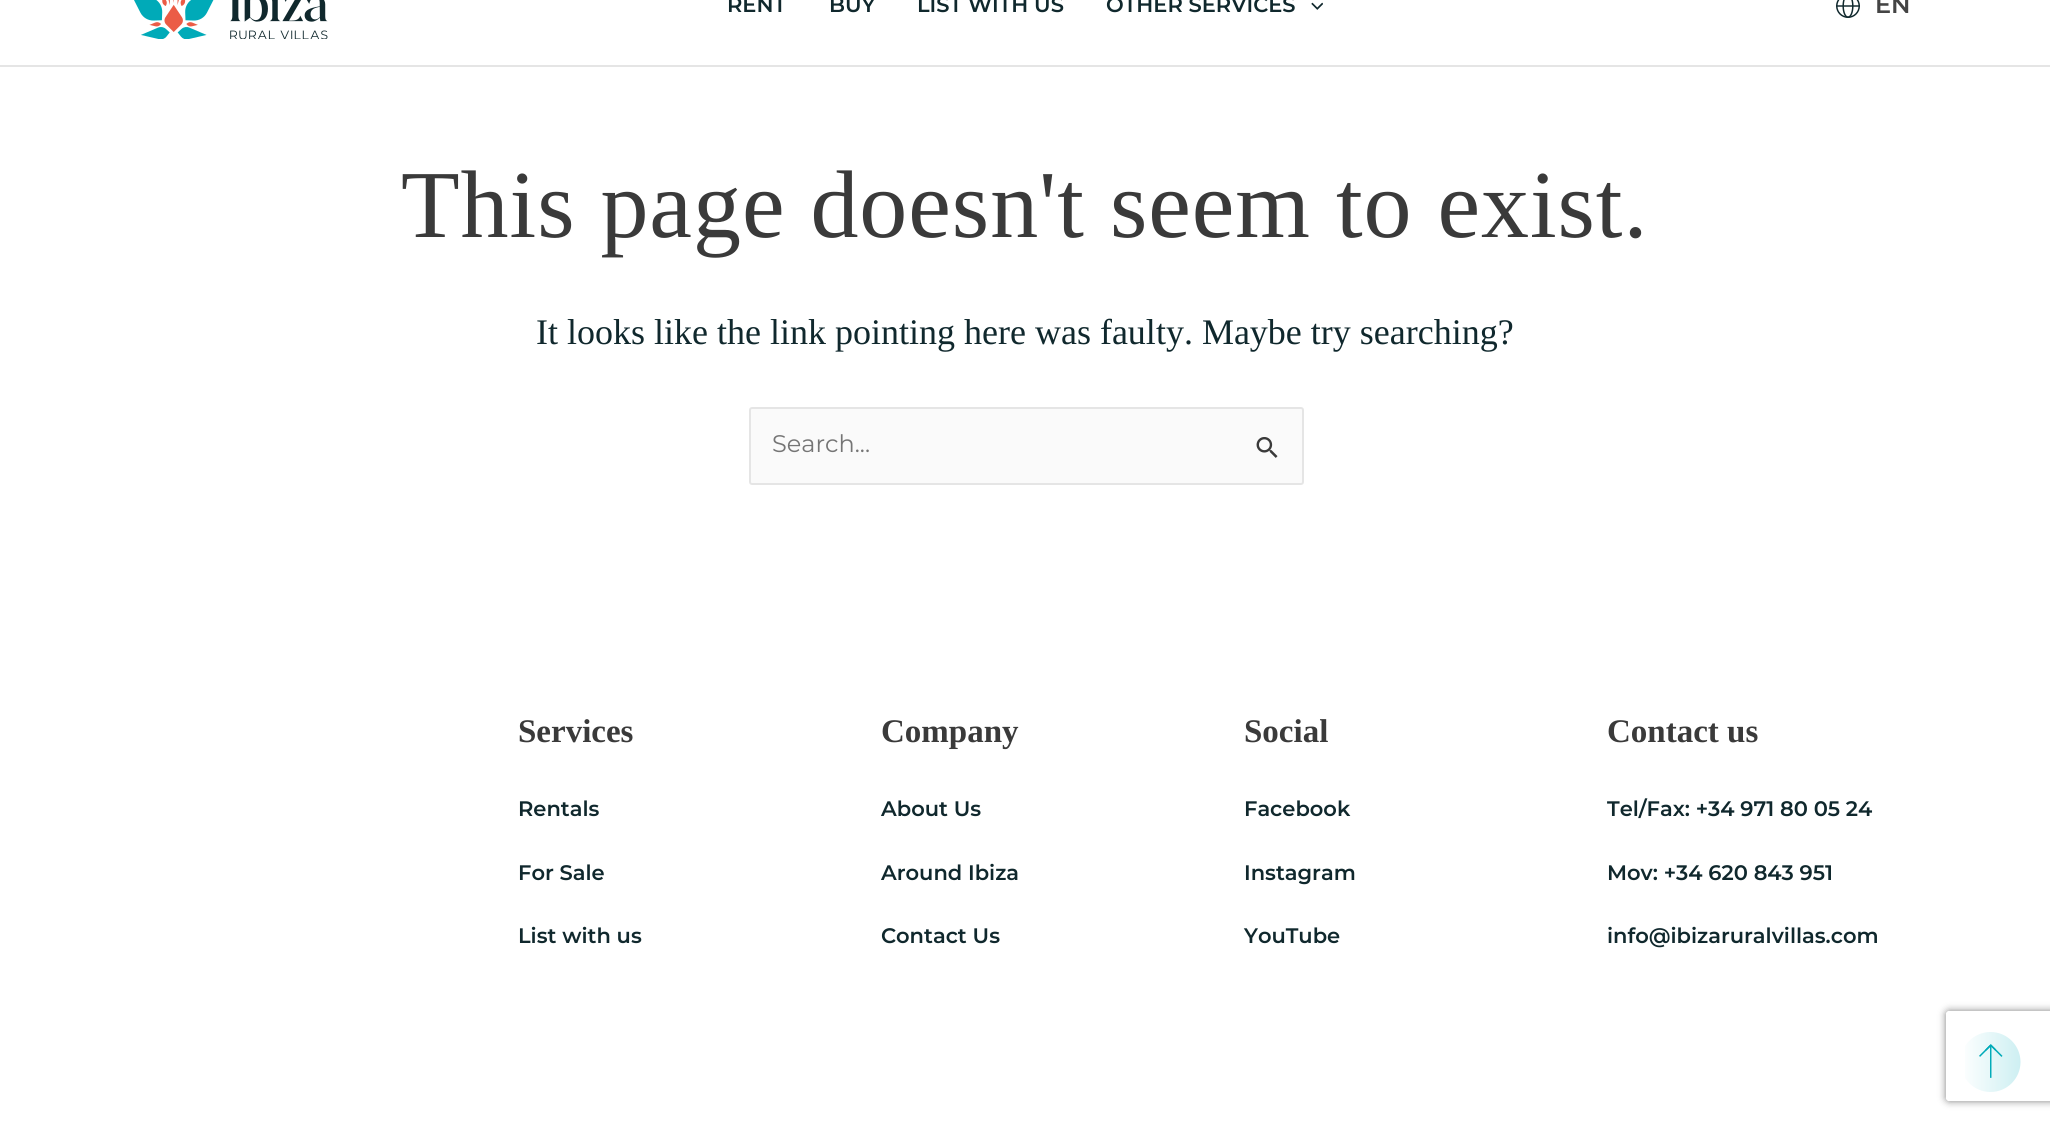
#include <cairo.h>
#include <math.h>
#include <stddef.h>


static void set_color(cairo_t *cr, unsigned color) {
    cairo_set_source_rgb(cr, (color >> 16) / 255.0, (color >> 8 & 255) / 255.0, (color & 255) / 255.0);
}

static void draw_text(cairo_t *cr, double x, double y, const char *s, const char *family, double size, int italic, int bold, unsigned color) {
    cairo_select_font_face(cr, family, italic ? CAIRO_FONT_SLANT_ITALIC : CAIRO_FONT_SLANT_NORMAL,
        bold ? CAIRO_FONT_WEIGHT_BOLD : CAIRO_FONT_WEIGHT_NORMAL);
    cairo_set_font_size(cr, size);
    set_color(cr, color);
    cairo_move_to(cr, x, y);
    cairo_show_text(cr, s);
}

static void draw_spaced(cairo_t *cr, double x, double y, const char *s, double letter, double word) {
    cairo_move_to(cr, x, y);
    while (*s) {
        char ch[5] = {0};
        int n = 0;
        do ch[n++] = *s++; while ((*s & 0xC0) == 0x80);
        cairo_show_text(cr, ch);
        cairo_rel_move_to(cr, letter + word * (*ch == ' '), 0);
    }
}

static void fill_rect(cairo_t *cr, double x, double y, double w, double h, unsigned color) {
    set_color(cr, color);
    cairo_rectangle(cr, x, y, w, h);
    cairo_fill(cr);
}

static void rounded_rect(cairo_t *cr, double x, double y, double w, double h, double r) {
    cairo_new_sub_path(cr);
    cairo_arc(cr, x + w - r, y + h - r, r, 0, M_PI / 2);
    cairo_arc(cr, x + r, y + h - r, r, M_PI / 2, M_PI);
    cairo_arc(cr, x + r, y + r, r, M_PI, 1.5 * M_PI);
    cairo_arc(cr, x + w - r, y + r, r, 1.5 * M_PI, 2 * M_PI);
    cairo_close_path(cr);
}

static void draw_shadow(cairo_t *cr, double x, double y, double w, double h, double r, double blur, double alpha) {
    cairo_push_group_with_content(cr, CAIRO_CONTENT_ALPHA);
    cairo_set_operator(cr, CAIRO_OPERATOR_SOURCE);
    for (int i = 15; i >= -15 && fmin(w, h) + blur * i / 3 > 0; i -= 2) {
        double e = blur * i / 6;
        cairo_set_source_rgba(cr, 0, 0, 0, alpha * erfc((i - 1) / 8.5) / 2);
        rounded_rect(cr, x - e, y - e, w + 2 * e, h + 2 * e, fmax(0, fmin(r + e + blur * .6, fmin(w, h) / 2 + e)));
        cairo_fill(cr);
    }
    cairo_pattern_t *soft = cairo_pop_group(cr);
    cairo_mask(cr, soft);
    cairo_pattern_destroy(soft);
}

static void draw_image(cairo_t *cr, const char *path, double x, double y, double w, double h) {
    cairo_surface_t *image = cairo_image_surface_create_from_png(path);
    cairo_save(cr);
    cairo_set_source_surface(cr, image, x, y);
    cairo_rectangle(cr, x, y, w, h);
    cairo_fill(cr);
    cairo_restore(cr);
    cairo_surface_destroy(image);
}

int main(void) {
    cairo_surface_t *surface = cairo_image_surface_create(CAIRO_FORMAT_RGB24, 2050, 1121);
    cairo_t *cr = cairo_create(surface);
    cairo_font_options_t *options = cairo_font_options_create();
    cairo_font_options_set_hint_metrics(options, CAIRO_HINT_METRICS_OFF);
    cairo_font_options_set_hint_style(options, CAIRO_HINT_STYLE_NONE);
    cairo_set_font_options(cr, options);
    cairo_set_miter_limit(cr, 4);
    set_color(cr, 0xFFFFFF);
    cairo_paint(cr);
    fill_rect(cr, 0, 65, 2050, 2, 0xE5E5E5);
    draw_image(cr, "assets/img1.png", 134, 0, 194, 39);
    draw_text(cr, 727, 12, "RENT", "Montserrat SemiBold", 21, 0, 0, 0x10282D);
    draw_text(cr, 829, 12, "BUY", "Montserrat SemiBold", 21, 0, 0, 0x10282D);
    draw_text(cr, 917, 12, "LIST WITH US", "Montserrat SemiBold", 21, 0, 0, 0x10282D);
    draw_text(cr, 1106, 12, "OTHER SERVICES", "Montserrat SemiBold", 21, 0, 0, 0x10282D);
    draw_image(cr, "assets/img2.png", 1311, 2, 12, 8);
    draw_image(cr, "assets/img3.png", 1836, 0, 24, 18);
    draw_text(cr, 1875, 13, "EN", "Montserrat SemiBold", 24, 0, 0, 0x444444);
    cairo_select_font_face(cr, "Liberation Serif", CAIRO_FONT_SLANT_NORMAL, CAIRO_FONT_WEIGHT_NORMAL);
    cairo_set_font_size(cr, 96);
    set_color(cr, 0x3A3A3A);
    draw_spaced(cr, 401, 237, "This page doesn't seem to exist.", 0.95, 0);
    draw_text(cr, 536, 344, "It looks like the link pointing here was faulty. Maybe try searching?", "Liberation Serif", 36, 0, 0, 0x10282D);
    set_color(cr, 0xFAFAFA);
    rounded_rect(cr, 750, 408, 553, 76, 2);
    cairo_fill_preserve(cr);
    set_color(cr, 0xE5E5E5);
    cairo_stroke(cr);
    draw_text(cr, 772, 452, "Search...", "Montserrat", 24, 0, 0, 0x757575);
    draw_image(cr, "assets/img4.png", 1256, 437, 22, 21);
    draw_text(cr, 518, 742, "Services", "Liberation Serif", 33, 0, 1, 0x3A3A3A);
    draw_text(cr, 518, 816, "Rentals", "Montserrat SemiBold", 21, 0, 0, 0x10282D);
    draw_text(cr, 518, 880, "For Sale", "Montserrat SemiBold", 21, 0, 0, 0x10282D);
    draw_text(cr, 518, 943, "List with us", "Montserrat SemiBold", 21, 0, 0, 0x10282D);
    draw_text(cr, 881, 742, "Company", "Liberation Serif", 33, 0, 1, 0x3A3A3A);
    draw_text(cr, 881, 816, "About Us", "Montserrat SemiBold", 21, 0, 0, 0x10282D);
    draw_text(cr, 881, 880, "Around Ibiza", "Montserrat SemiBold", 21, 0, 0, 0x10282D);
    draw_text(cr, 881, 943, "Contact Us", "Montserrat SemiBold", 21, 0, 0, 0x10282D);
    draw_text(cr, 1244, 742, "Social", "Liberation Serif", 33, 0, 1, 0x3A3A3A);
    draw_text(cr, 1244, 816, "Facebook", "Montserrat SemiBold", 21, 0, 0, 0x10282D);
    draw_text(cr, 1244, 880, "Instagram", "Montserrat SemiBold", 21, 0, 0, 0x10282D);
    draw_text(cr, 1244, 943, "YouTube", "Montserrat SemiBold", 21, 0, 0, 0x10282D);
    draw_text(cr, 1607, 742, "Contact us", "Liberation Serif", 33, 0, 1, 0x3A3A3A);
    draw_text(cr, 1607, 816, "Tel/Fax: +34 971 80 05 24", "Montserrat SemiBold", 21, 0, 0, 0x10282D);
    draw_text(cr, 1607, 880, "Mov: +34 620 843 951", "Montserrat SemiBold", 21, 0, 0, 0x10282D);
    draw_text(cr, 1607, 943, "info@ibizaruralvillas.com", "Montserrat SemiBold", 21, 0, 0, 0x10282D);
    draw_image(cr, "assets/img5.png", 1965, 1032, 56, 60);
    cairo_save(cr);
    cairo_set_fill_rule(cr, CAIRO_FILL_RULE_EVEN_ODD);
    cairo_new_path(cr);
    cairo_move_to(cr, 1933, 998);
    cairo_line_to(cr, 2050, 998);
    cairo_line_to(cr, 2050, 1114);
    cairo_line_to(cr, 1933, 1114);
    cairo_close_path(cr);
    cairo_move_to(cr, 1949, 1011);
    cairo_line_to(cr, 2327, 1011);
    cairo_curve_to(cr, 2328.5, 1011, 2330, 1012.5, 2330, 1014);
    cairo_line_to(cr, 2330, 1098);
    cairo_curve_to(cr, 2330, 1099.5, 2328.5, 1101, 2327, 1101);
    cairo_line_to(cr, 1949, 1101);
    cairo_curve_to(cr, 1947.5, 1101, 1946, 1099.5, 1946, 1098);
    cairo_line_to(cr, 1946, 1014);
    cairo_curve_to(cr, 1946, 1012.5, 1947.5, 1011, 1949, 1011);
    cairo_close_path(cr);
    cairo_clip(cr);
    set_color(cr, 0x808080);
    draw_shadow(cr, 1946, 1011, 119, 90, 3, 4, 1);
    cairo_restore(cr);
    cairo_surface_write_to_png(surface, "output.png");
    cairo_font_options_destroy(options);
    cairo_destroy(cr);
    cairo_surface_destroy(surface);
    return 0;
}
